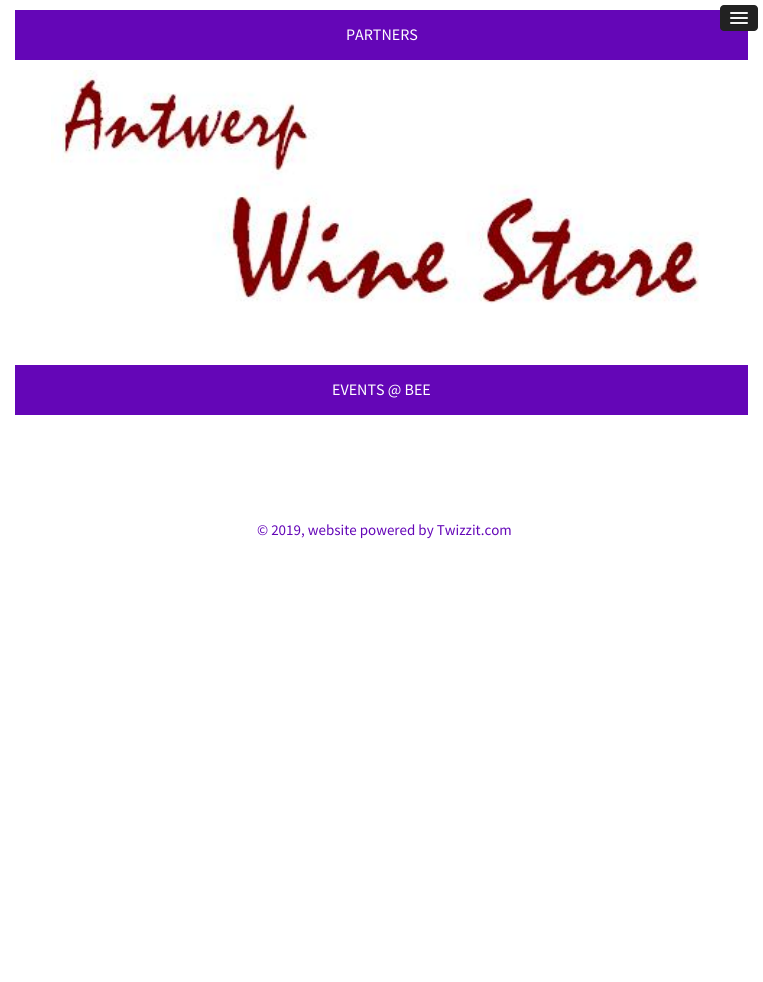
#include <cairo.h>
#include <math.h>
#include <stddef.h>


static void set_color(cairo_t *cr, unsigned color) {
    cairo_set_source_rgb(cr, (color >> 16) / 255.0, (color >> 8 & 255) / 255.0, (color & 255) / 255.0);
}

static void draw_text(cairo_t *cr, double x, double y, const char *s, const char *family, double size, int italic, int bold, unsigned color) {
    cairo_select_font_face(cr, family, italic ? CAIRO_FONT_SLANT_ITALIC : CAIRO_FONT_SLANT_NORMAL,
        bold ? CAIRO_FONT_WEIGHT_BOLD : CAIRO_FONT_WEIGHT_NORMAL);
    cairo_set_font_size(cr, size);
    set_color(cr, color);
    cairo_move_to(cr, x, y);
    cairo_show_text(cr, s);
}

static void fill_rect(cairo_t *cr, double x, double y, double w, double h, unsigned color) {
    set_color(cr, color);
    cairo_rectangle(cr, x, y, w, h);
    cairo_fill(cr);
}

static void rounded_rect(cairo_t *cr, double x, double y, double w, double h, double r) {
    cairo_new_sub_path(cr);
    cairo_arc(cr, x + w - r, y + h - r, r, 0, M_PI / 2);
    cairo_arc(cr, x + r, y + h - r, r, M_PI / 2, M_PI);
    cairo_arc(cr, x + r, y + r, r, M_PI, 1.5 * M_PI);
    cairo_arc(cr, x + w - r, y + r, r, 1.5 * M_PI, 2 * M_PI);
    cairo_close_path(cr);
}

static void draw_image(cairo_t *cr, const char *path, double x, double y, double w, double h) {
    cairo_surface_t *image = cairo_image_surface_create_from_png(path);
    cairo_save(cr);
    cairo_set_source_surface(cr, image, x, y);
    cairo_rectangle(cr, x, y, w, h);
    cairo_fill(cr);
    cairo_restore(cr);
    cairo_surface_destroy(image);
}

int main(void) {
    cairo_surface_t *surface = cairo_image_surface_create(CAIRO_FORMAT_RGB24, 763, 982);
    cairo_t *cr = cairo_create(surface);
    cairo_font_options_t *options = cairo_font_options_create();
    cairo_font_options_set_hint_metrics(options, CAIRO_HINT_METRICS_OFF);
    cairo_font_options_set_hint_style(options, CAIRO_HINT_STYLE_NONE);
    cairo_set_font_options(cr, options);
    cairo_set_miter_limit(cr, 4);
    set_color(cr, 0xFFFFFF);
    cairo_paint(cr);
    fill_rect(cr, 15, 10, 733, 50, 0x6406B7);
    set_color(cr, 0x222222);
    rounded_rect(cr, 720, 5, 38, 26, 4);
    cairo_fill(cr);
    set_color(cr, 0x1A1A1A);
    cairo_new_path(cr);
    cairo_move_to(cr, 730, 13.5);
    cairo_curve_to(cr, 729, 15.5, 733.5, 15, 733.5, 15);
    cairo_line_to(cr, 744.5, 15);
    cairo_curve_to(cr, 744.5, 15, 749, 15.5, 748, 13.5);
    cairo_curve_to(cr, 747, 14.5, 740.5, 14, 739, 14);
    cairo_curve_to(cr, 737.5, 14, 731, 14.5, 730, 13.5);
    cairo_close_path(cr);
    cairo_fill(cr);
    set_color(cr, 0xF5F5F5);
    rounded_rect(cr, 730, 12, 18, 2, 1);
    cairo_fill(cr);
    set_color(cr, 0x1A1A1A);
    cairo_new_path(cr);
    cairo_move_to(cr, 730, 18.5);
    cairo_curve_to(cr, 729, 20.5, 733.5, 20, 733.5, 20);
    cairo_line_to(cr, 744.5, 20);
    cairo_curve_to(cr, 744.5, 20, 749, 20.5, 748, 18.5);
    cairo_curve_to(cr, 747, 19.5, 740.5, 19, 739, 19);
    cairo_curve_to(cr, 737.5, 19, 731, 19.5, 730, 18.5);
    cairo_close_path(cr);
    cairo_fill(cr);
    set_color(cr, 0xF5F5F5);
    rounded_rect(cr, 730, 17, 18, 2, 1);
    cairo_fill(cr);
    set_color(cr, 0x1A1A1A);
    cairo_new_path(cr);
    cairo_move_to(cr, 730, 23.5);
    cairo_curve_to(cr, 729, 25.5, 733.5, 25, 733.5, 25);
    cairo_line_to(cr, 744.5, 25);
    cairo_curve_to(cr, 744.5, 25, 749, 25.5, 748, 23.5);
    cairo_curve_to(cr, 747, 24.5, 740.5, 24, 739, 24);
    cairo_curve_to(cr, 737.5, 24, 731, 24.5, 730, 23.5);
    cairo_close_path(cr);
    cairo_fill(cr);
    set_color(cr, 0xF5F5F5);
    rounded_rect(cr, 730, 22, 18, 2, 1);
    cairo_fill(cr);
    draw_text(cr, 346, 40, "PARTNERS", "Source Sans Pro", 16, 0, 0, 0xFFFFFF);
    draw_image(cr, "assets/img1.png", 51, 70, 649, 234);
    fill_rect(cr, 15, 365, 733, 50, 0x6406B7);
    draw_text(cr, 332, 395, "EVENTS @ BEE", "Source Sans Pro", 16, 0, 0, 0xFFFFFF);
    draw_text(cr, 257, 535, "© 2019, website powered by Twizzit.com", "Source Sans Pro", 15, 0, 0, 0x6406B7);
    cairo_surface_write_to_png(surface, "output.png");
    cairo_font_options_destroy(options);
    cairo_destroy(cr);
    cairo_surface_destroy(surface);
    return 0;
}
